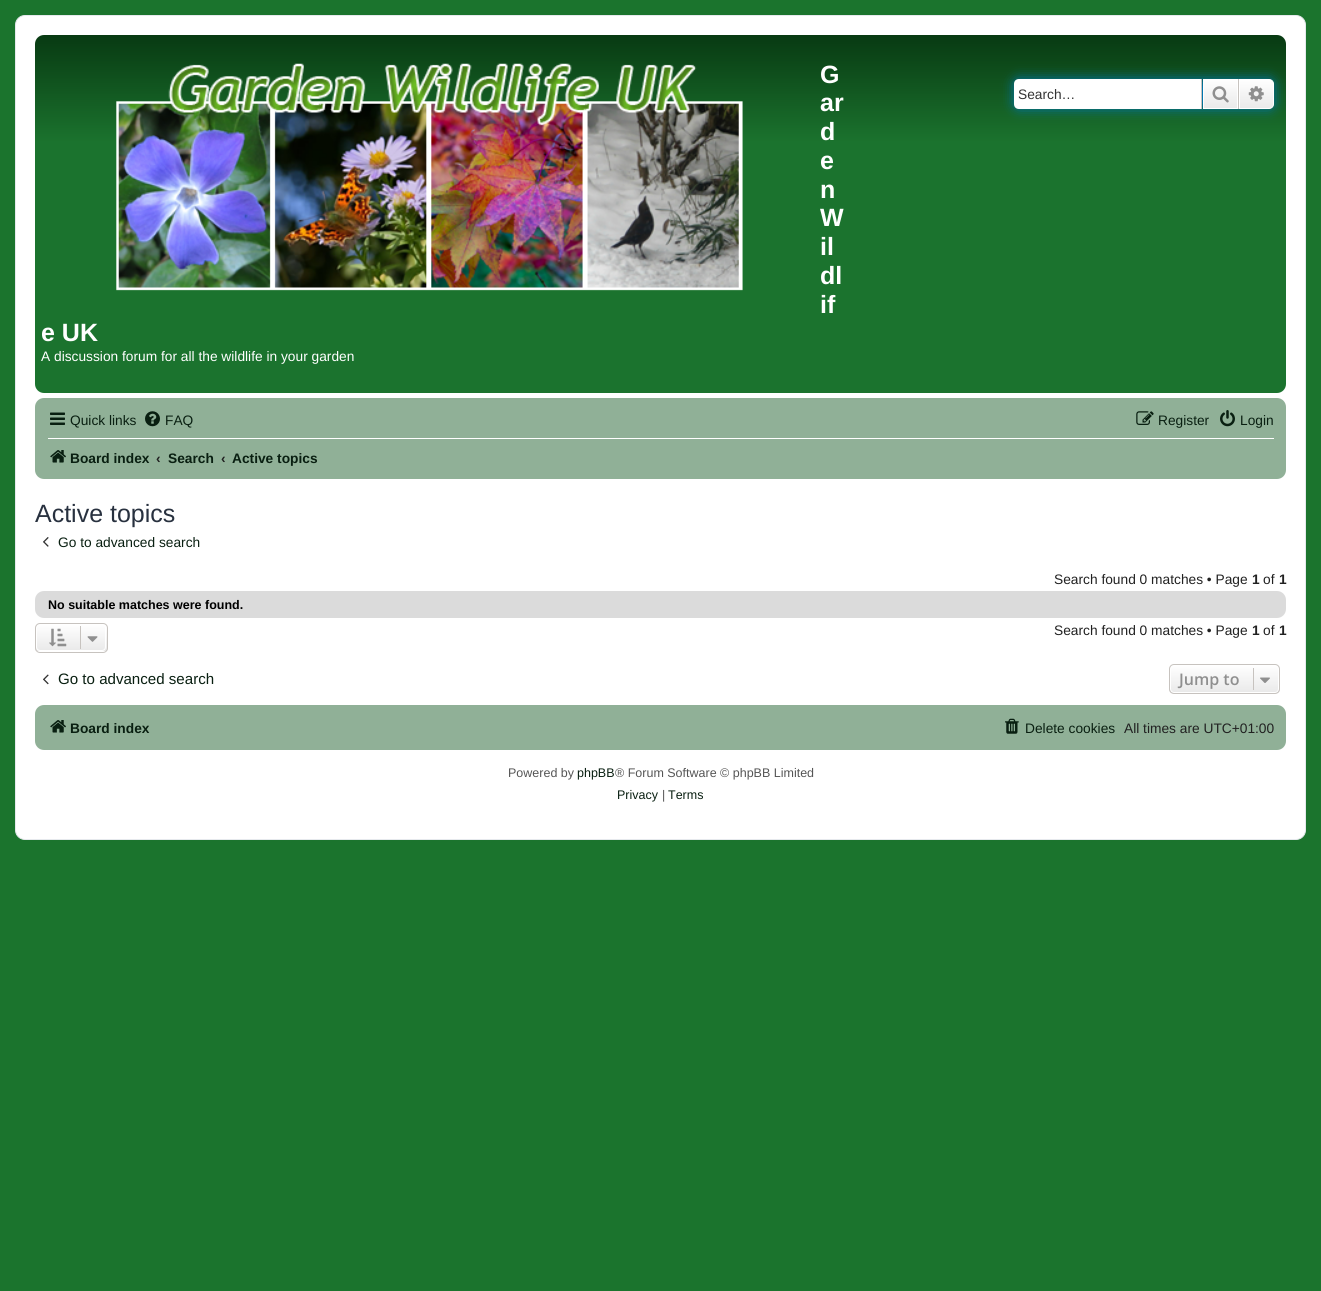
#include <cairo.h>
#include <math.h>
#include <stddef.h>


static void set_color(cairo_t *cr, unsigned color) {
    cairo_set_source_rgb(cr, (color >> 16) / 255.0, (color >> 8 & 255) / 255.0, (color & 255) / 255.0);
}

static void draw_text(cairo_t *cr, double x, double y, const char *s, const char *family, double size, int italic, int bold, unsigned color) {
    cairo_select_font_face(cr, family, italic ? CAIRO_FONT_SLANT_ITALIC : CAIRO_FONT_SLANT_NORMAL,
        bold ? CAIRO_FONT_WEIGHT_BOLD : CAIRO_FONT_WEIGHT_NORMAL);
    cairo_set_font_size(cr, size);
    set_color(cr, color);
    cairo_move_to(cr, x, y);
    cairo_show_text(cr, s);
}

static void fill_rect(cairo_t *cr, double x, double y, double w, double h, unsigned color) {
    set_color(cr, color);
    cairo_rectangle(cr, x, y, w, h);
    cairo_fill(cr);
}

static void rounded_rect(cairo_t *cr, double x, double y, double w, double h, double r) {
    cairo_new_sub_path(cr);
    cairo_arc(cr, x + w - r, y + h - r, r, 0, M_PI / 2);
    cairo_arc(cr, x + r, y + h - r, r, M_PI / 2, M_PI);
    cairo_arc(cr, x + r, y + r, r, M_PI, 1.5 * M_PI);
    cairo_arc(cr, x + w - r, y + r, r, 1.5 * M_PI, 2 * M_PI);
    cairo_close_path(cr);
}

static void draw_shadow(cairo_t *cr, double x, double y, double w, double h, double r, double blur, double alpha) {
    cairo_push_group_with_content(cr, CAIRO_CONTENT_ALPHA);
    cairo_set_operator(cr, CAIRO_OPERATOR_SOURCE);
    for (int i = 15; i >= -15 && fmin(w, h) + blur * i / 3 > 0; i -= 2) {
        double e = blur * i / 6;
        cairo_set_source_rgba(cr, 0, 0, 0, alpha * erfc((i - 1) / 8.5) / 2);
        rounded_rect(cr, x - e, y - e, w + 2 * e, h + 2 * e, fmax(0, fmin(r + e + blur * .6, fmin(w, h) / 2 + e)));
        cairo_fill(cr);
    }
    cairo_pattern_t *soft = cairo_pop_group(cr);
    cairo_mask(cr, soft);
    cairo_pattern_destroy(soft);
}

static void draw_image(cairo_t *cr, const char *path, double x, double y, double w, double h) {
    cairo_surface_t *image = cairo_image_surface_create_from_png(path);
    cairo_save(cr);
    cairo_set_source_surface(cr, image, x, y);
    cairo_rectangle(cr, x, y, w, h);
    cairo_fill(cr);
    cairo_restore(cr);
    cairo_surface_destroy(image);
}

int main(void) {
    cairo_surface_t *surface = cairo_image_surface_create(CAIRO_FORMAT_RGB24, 1321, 1291);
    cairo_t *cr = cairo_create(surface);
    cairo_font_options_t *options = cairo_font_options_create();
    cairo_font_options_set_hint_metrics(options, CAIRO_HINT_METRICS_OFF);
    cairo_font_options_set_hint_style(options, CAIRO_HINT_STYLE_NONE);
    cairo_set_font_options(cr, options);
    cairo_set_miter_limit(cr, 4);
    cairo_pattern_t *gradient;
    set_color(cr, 0x1B742D);
    cairo_paint(cr);
    set_color(cr, 0xFFFFFF);
    rounded_rect(cr, 15.5, 15.5, 1290, 824, 9.5);
    cairo_fill_preserve(cr);
    set_color(cr, 0xE6E9ED);
    cairo_set_line_width(cr, 1);
    cairo_stroke(cr);
    gradient = cairo_pattern_create_linear(661, 35, 661, 393);
    cairo_pattern_add_color_stop_rgba(gradient, 0, 0.165, 0.89, 0.322, 1);
    cairo_pattern_add_color_stop_rgba(gradient, 0, 0.031, 0.227, 0.071, 1);
    cairo_pattern_add_color_stop_rgba(gradient, 0.3, 0.106, 0.451, 0.18, 1);
    cairo_pattern_add_color_stop_rgba(gradient, 1, 0.106, 0.451, 0.18, 1);
    cairo_set_source(cr, gradient);
    cairo_pattern_destroy(gradient);
    rounded_rect(cr, 35, 35, 1251, 358, 9);
    cairo_fill(cr);
    draw_image(cr, "assets/img1.png", 116, 63, 627, 228);
    draw_text(cr, 820, 83, "G", "Liberation Sans", 25, 0, 1, 0xFFFFFF);
    draw_text(cr, 820, 111, "ar", "Liberation Sans", 25, 0, 1, 0xFFFFFF);
    draw_text(cr, 820, 140, "d", "Liberation Sans", 25, 0, 1, 0xFFFFFF);
    draw_text(cr, 820, 169, "e", "Liberation Sans", 25, 0, 1, 0xFFFFFF);
    draw_text(cr, 820, 198, "n", "Liberation Sans", 25, 0, 1, 0xFFFFFF);
    draw_text(cr, 820, 226, "W", "Liberation Sans", 25, 0, 1, 0xFFFFFF);
    draw_text(cr, 820, 255, "il", "Liberation Sans", 25, 0, 1, 0xFFFFFF);
    draw_text(cr, 820, 284, "dl", "Liberation Sans", 25, 0, 1, 0xFFFFFF);
    draw_text(cr, 820, 313, "if", "Liberation Sans", 25, 0, 1, 0xFFFFFF);
    draw_text(cr, 41, 341, "e UK", "Liberation Sans", 25, 0, 1, 0xFFFFFF);
    draw_text(cr, 41, 361, "A discussion forum for all the wildlife in your garden", "Liberation Sans", 13.75, 0, 0, 0xFFFFFF);
    set_color(cr, 0x0075B0);
    draw_shadow(cr, 1014, 79, 260, 30, 5, 6, 1);
    set_color(cr, 0xFFFFFF);
    cairo_new_path(cr);
    cairo_move_to(cr, 1019, 79);
    cairo_line_to(cr, 1201, 79);
    cairo_line_to(cr, 1201, 109);
    cairo_line_to(cr, 1019, 109);
    cairo_curve_to(cr, 1016, 109, 1014, 107, 1014, 104);
    cairo_line_to(cr, 1014, 84);
    cairo_curve_to(cr, 1014, 81, 1016, 79, 1019, 79);
    cairo_close_path(cr);
    cairo_fill(cr);
    draw_text(cr, 1018, 99, "Search…", "Liberation Sans", 13.75, 0, 0, 0x333333);
    gradient = cairo_pattern_create_linear(1220, 79, 1220, 109);
    cairo_pattern_add_color_stop_rgba(gradient, 0, 1, 1, 1, 1);
    cairo_pattern_add_color_stop_rgba(gradient, 1, 0.914, 0.914, 0.914, 1);
    cairo_set_source(cr, gradient);
    cairo_pattern_destroy(gradient);
    cairo_rectangle(cr, 1204, 80, 33, 28);
    cairo_fill(cr);
    cairo_rectangle(cr, 1203.5, 79.5, 34, 29);
    set_color(cr, 0xFFFFFF);
    cairo_stroke(cr);
    fill_rect(cr, 1238, 79, 1, 30, 0xC7C3BF);
    fill_rect(cr, 1201, 79, 1, 30, 0xC7C3BF);
    draw_image(cr, "assets/img2.png", 1212, 86, 17, 17);
    gradient = cairo_pattern_create_linear(1256, 79, 1256, 109);
    cairo_pattern_add_color_stop_rgba(gradient, 0, 1, 1, 1, 1);
    cairo_pattern_add_color_stop_rgba(gradient, 1, 0.914, 0.914, 0.914, 1);
    cairo_set_source(cr, gradient);
    cairo_pattern_destroy(gradient);
    cairo_new_path(cr);
    cairo_move_to(cr, 1239.5, 79.5);
    cairo_line_to(cr, 1269, 79.5);
    cairo_curve_to(cr, 1271.5, 79.5, 1273.5, 81.5, 1273.5, 84);
    cairo_line_to(cr, 1273.5, 104);
    cairo_curve_to(cr, 1273.5, 106.5, 1271.5, 108.5, 1269, 108.5);
    cairo_line_to(cr, 1239.5, 108.5);
    cairo_close_path(cr);
    cairo_fill_preserve(cr);
    set_color(cr, 0xFFFFFF);
    cairo_stroke(cr);
    draw_image(cr, "assets/img3.png", 1248, 86, 16, 16);
    set_color(cr, 0x90B097);
    rounded_rect(cr, 35, 398, 1251, 81, 9);
    cairo_fill(cr);
    draw_image(cr, "assets/img4.png", 50, 412, 15, 13);
    draw_text(cr, 70, 425, "Quick links", "Liberation Sans", 13.75, 0, 0, 0x091F11);
    draw_image(cr, "assets/img5.png", 145, 411, 15, 16);
    draw_text(cr, 165, 425, "FAQ", "Liberation Sans", 13.75, 0, 0, 0x091F11);
    draw_image(cr, "assets/img6.png", 1136, 411, 18, 14);
    draw_text(cr, 1158, 425, "Register", "Liberation Sans", 13.75, 0, 0, 0x091F11);
    draw_image(cr, "assets/img7.png", 1220, 410, 15, 17);
    draw_text(cr, 1240, 425, "Login", "Liberation Sans", 13.75, 0, 0, 0x091F11);
    fill_rect(cr, 48, 438, 1226, 1, 0xFFFFFF);
    draw_image(cr, "assets/img8.png", 50, 450, 16, 13);
    draw_text(cr, 70, 463, "Board index", "Liberation Sans", 13.75, 0, 1, 0x091F11);
    draw_text(cr, 156, 463, "‹", "Liberation Sans", 13.75, 0, 1, 0x212121);
    draw_text(cr, 168, 463, "Search", "Liberation Sans", 13.75, 0, 1, 0x091F11);
    draw_text(cr, 221, 463, "‹", "Liberation Sans", 13.75, 0, 1, 0x212121);
    draw_text(cr, 232, 463, "Active topics", "Liberation Sans", 13.75, 0, 1, 0x091F11);
    draw_text(cr, 35, 522, "Active topics", "Liberation Sans", 25, 0, 0, 0x28313F);
    draw_image(cr, "assets/img9.png", 43, 537, 6, 10);
    draw_text(cr, 58, 547, "Go to advanced search", "Liberation Sans", 13.75, 0, 0, 0x091F11);
    draw_text(cr, 1054, 584, "Search found 0 matches • Page", "Liberation Sans", 13.75, 0, 0, 0x212121);
    draw_text(cr, 1252, 584, "1", "Liberation Sans", 13.75, 0, 1, 0x212121);
    draw_text(cr, 1263, 584, "of", "Liberation Sans", 13.75, 0, 0, 0x212121);
    draw_text(cr, 1279, 584, "1", "Liberation Sans", 13.75, 0, 1, 0x212121);
    set_color(cr, 0xDBDBDB);
    rounded_rect(cr, 35, 591, 1251, 27, 9);
    cairo_fill(cr);
    draw_text(cr, 48, 609, "No suitable matches were found.", "Liberation Sans", 12.5, 0, 1, 0x000000);
    cairo_save(cr);
    rounded_rect(cr, 35, 623, 73, 30, 5);
    cairo_clip(cr);
    gradient = cairo_pattern_create_linear(71, 624, 71, 651);
    cairo_pattern_add_color_stop_rgba(gradient, 0, 1, 1, 1, 1);
    cairo_pattern_add_color_stop_rgba(gradient, 1, 0.914, 0.914, 0.914, 1);
    cairo_set_source(cr, gradient);
    cairo_pattern_destroy(gradient);
    cairo_rectangle(cr, 35, 624, 73, 27);
    cairo_fill(cr);
    cairo_restore(cr);
    rounded_rect(cr, 36.5, 624.5, 69, 26, 3.5);
    set_color(cr, 0xFFFFFF);
    cairo_stroke(cr);
    rounded_rect(cr, 35.5, 623.5, 72, 29, 4.5);
    set_color(cr, 0xC7C3BF);
    cairo_stroke(cr);
    draw_image(cr, "assets/img10.png", 49, 628, 18, 19);
    fill_rect(cr, 80, 626, 1, 23, 0xC7C3BF);
    draw_image(cr, "assets/img11.png", 87, 636, 11, 6);
    draw_text(cr, 1054, 635, "Search found 0 matches • Page", "Liberation Sans", 13.75, 0, 0, 0x212121);
    draw_text(cr, 1252, 635, "1", "Liberation Sans", 13.75, 0, 1, 0x212121);
    draw_text(cr, 1263, 635, "of", "Liberation Sans", 13.75, 0, 0, 0x212121);
    draw_text(cr, 1279, 635, "1", "Liberation Sans", 13.75, 0, 1, 0x212121);
    draw_image(cr, "assets/img12.png", 43, 674, 6, 11);
    draw_text(cr, 58, 684, "Go to advanced search", "Liberation Sans", 15.1, 0, 0, 0x091F11);
    cairo_save(cr);
    rounded_rect(cr, 1169, 664, 111, 30, 5);
    cairo_clip(cr);
    gradient = cairo_pattern_create_linear(1224, 665, 1224, 693);
    cairo_pattern_add_color_stop_rgba(gradient, 0, 1, 1, 1, 1);
    cairo_pattern_add_color_stop_rgba(gradient, 1, 0.914, 0.914, 0.914, 1);
    cairo_set_source(cr, gradient);
    cairo_pattern_destroy(gradient);
    cairo_rectangle(cr, 1169, 665, 111, 28);
    cairo_fill(cr);
    cairo_restore(cr);
    rounded_rect(cr, 1170.5, 665.5, 108, 27, 3.5);
    set_color(cr, 0xFFFFFF);
    cairo_stroke(cr);
    rounded_rect(cr, 1169.5, 664.5, 110, 29, 4.5);
    set_color(cr, 0xC7C3BF);
    cairo_stroke(cr);
    draw_text(cr, 1179, 685, "Jump to", "Open Sans SemiBold", 16, 0, 0, 0x8F8F8F);
    fill_rect(cr, 1253, 668, 1, 22, 0xC7C3BF);
    draw_image(cr, "assets/img13.png", 1260, 677, 10, 6);
    set_color(cr, 0x90B097);
    rounded_rect(cr, 35, 705, 1251, 45, 9);
    cairo_fill(cr);
    draw_image(cr, "assets/img8.png", 50, 720, 16, 13);
    draw_text(cr, 70, 733, "Board index", "Liberation Sans", 13.75, 0, 1, 0x091F11);
    draw_image(cr, "assets/img14.png", 1005, 718, 14, 16);
    draw_text(cr, 1025, 733, "Delete cookies", "Liberation Sans", 13.75, 0, 0, 0x091F11);
    draw_text(cr, 1124, 733, "All times are UTC+01:00", "Liberation Sans", 13.75, 0, 0, 0x212121);
    draw_text(cr, 508, 777, "Powered by", "Liberation Sans", 12.5, 0, 0, 0x555555);
    draw_text(cr, 577, 777, "phpBB", "Liberation Sans", 12.5, 0, 0, 0x091F11);
    draw_text(cr, 615, 777, "® Forum Software © phpBB Limited", "Liberation Sans", 12.5, 0, 0, 0x555555);
    draw_text(cr, 617, 799, "Privacy", "Liberation Sans", 12.5, 0, 0, 0x091F11);
    draw_text(cr, 662, 799, "|", "Liberation Sans", 12.5, 0, 0, 0x555555);
    draw_text(cr, 668, 799, "Terms", "Liberation Sans", 12.5, 0, 0, 0x091F11);
    cairo_surface_write_to_png(surface, "output.png");
    cairo_font_options_destroy(options);
    cairo_destroy(cr);
    cairo_surface_destroy(surface);
    return 0;
}
